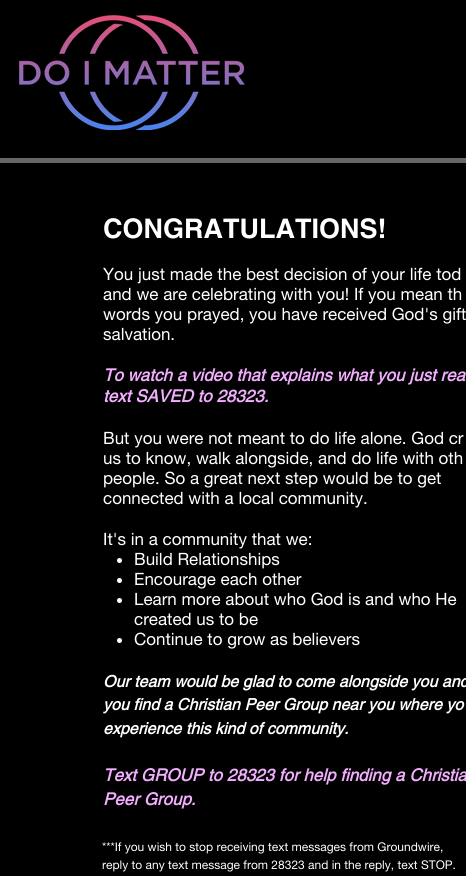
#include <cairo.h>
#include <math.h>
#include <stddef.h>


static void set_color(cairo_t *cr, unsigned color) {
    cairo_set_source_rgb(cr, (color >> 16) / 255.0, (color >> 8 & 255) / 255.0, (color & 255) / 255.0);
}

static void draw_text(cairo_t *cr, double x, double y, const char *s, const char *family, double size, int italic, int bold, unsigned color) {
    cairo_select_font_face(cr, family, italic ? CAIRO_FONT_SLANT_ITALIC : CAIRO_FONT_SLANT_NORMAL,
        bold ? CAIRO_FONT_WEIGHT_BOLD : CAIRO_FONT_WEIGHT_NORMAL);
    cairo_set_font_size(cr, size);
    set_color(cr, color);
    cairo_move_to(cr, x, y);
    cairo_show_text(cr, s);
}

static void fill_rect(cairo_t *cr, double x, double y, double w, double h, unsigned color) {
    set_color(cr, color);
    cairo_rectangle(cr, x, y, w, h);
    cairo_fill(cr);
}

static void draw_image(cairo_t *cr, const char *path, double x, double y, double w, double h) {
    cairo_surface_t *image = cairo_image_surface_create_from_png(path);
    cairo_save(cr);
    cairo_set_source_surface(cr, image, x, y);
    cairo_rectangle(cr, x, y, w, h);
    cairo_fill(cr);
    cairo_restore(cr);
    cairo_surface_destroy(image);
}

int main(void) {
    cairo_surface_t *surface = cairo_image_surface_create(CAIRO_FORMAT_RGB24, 466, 876);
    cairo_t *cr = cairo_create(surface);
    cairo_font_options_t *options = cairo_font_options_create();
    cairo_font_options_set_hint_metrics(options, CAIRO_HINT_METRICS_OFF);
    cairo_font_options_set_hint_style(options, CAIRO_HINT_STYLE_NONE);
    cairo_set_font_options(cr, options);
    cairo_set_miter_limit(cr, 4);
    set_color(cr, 0x000000);
    cairo_paint(cr);
    draw_image(cr, "assets/img1.png", 19, 15, 226, 115);
    fill_rect(cr, 0, 158, 466, 5, 0x666666);
    draw_text(cr, 103, 238, "CONGRATULATIONS!", "helvetica", 27, 0, 1, 0xFFFFFF);
    draw_text(cr, 103, 280, "You just made the best decision of your life tod", "helvetica neue", 17, 0, 0, 0xFFFFFF);
    draw_text(cr, 103, 300, "and we are celebrating with you! If you mean th", "helvetica neue", 17, 0, 0, 0xFFFFFF);
    draw_text(cr, 103, 320, "words you prayed, you have received God's gift", "helvetica neue", 17, 0, 0, 0xFFFFFF);
    draw_text(cr, 103, 340, "salvation.", "helvetica neue", 17, 0, 0, 0xFFFFFF);
    draw_text(cr, 103, 381, "To watch a video that explains what you just rea", "helvetica", 17, 1, 1, 0xF3AEFF);
    draw_text(cr, 103, 402, "text SAVED to 28323.", "helvetica", 17, 1, 1, 0xF3AEFF);
    draw_text(cr, 103, 444, "But you were not meant to do life alone. God cr", "helvetica neue", 17, 0, 0, 0xFFFFFF);
    draw_text(cr, 103, 464, "us to know, walk alongside, and do life with oth", "helvetica neue", 17, 0, 0, 0xFFFFFF);
    draw_text(cr, 103, 484, "people. So a great next step would be to get", "helvetica neue", 17, 0, 0, 0xFFFFFF);
    draw_text(cr, 103, 504, "connected with a local community.", "helvetica neue", 17, 0, 0, 0xFFFFFF);
    draw_text(cr, 103, 545, "It's in a community that we:", "helvetica neue", 17, 0, 0, 0xFFFFFF);
    cairo_new_path(cr);
    cairo_arc(cr, 119.5, 560.5, 2.5, 0, 2 * M_PI);
    cairo_fill(cr);
    draw_text(cr, 134, 565, "Build Relationships", "helvetica neue", 17, 0, 0, 0xFFFFFF);
    cairo_new_path(cr);
    cairo_arc(cr, 119.5, 580.5, 2.5, 0, 2 * M_PI);
    cairo_fill(cr);
    draw_text(cr, 134, 585, "Encourage each other", "helvetica neue", 17, 0, 0, 0xFFFFFF);
    cairo_new_path(cr);
    cairo_arc(cr, 119.5, 600.5, 2.5, 0, 2 * M_PI);
    cairo_fill(cr);
    draw_text(cr, 134, 605, "Learn more about who God is and who He", "helvetica neue", 17, 0, 0, 0xFFFFFF);
    draw_text(cr, 134, 625, "created us to be", "helvetica neue", 17, 0, 0, 0xFFFFFF);
    cairo_new_path(cr);
    cairo_arc(cr, 119.5, 640.5, 2.5, 0, 2 * M_PI);
    cairo_fill(cr);
    draw_text(cr, 134, 645, "Continue to grow as believers", "helvetica neue", 17, 0, 0, 0xFFFFFF);
    draw_text(cr, 103, 687, "Our team would be glad to come alongside you and", "helvetica", 16, 1, 1, 0xFFFFFF);
    draw_text(cr, 103, 710, "you find a Christian Peer Group near you where yo", "helvetica", 16, 1, 1, 0xFFFFFF);
    draw_text(cr, 103, 734, "experience this kind of community.", "helvetica", 16, 1, 1, 0xFFFFFF);
    draw_text(cr, 103, 781, "Text GROUP to 28323 for help finding a Christia", "helvetica", 17, 1, 1, 0xF3AEFF);
    draw_text(cr, 103, 805, "Peer Group.", "helvetica", 17, 1, 1, 0xF3AEFF);
    draw_text(cr, 102, 851, "***If you wish to stop receiving text messages from Groundwire,", "helvetica neue", 12, 0, 0, 0xFFFFFF);
    draw_text(cr, 102, 869, "reply to any text message from 28323 and in the reply, text STOP.", "helvetica neue", 12, 0, 0, 0xFFFFFF);
    cairo_surface_write_to_png(surface, "output.png");
    cairo_font_options_destroy(options);
    cairo_destroy(cr);
    cairo_surface_destroy(surface);
    return 0;
}
